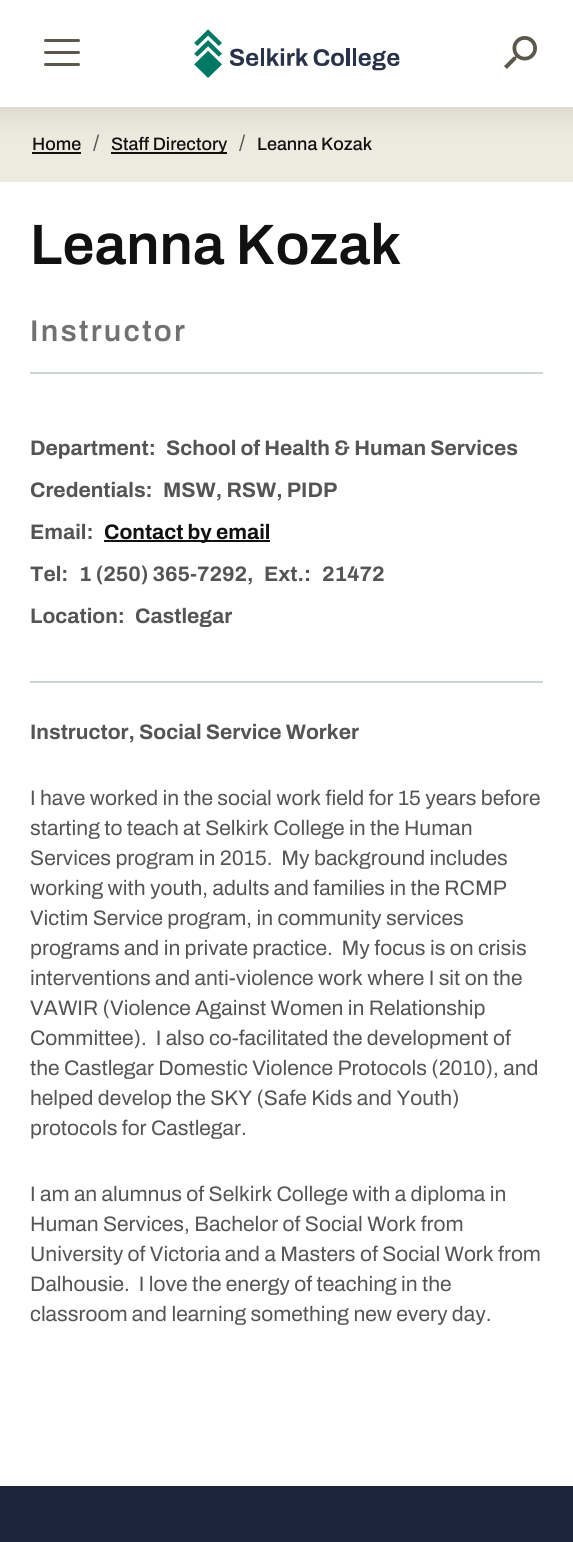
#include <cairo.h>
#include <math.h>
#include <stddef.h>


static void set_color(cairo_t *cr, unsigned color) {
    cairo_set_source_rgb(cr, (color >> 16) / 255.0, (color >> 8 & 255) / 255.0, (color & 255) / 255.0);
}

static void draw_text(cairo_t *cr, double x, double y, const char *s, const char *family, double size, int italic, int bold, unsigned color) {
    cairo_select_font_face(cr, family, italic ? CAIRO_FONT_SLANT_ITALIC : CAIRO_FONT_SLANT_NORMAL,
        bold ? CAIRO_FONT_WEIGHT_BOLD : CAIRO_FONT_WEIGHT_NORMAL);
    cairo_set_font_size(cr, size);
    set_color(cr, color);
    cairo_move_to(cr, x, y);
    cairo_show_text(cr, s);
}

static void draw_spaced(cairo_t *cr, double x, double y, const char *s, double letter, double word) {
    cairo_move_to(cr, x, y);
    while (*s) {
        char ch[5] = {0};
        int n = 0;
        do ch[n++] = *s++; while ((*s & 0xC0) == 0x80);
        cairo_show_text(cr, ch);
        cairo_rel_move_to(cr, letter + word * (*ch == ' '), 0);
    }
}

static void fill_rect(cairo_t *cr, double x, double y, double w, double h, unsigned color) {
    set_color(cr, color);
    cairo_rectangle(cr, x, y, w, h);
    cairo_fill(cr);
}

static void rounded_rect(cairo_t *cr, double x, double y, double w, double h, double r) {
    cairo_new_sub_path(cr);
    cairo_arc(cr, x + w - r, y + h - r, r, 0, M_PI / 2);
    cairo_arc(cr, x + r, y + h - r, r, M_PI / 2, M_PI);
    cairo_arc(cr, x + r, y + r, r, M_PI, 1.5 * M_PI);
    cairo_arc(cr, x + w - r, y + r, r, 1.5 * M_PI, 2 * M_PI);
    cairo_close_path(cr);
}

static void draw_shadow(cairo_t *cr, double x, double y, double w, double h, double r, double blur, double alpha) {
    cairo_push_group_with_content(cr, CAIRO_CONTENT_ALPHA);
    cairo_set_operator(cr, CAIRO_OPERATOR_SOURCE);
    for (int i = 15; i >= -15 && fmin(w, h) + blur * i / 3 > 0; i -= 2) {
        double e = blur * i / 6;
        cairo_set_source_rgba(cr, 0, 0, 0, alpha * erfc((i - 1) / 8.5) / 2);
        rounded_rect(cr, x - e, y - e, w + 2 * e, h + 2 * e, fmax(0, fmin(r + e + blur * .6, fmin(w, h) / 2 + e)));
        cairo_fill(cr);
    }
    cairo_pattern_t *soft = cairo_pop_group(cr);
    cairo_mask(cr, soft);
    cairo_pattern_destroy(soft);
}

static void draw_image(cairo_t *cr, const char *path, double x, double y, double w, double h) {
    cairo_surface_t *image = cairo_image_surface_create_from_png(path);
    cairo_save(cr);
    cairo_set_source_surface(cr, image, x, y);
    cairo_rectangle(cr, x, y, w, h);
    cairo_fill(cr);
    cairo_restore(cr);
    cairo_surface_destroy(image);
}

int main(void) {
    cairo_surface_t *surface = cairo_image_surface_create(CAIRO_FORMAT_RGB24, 573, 1542);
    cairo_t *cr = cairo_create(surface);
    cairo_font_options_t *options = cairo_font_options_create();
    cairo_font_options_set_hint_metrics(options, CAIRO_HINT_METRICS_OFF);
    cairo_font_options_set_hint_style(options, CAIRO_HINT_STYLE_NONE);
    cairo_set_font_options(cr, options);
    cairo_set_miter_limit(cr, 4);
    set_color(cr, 0xFFFFFF);
    cairo_paint(cr);
    fill_rect(cr, 0, 107, 573, 75, 0xEDEADF);
    fill_rect(cr, 32, 152, 49, 2, 0x111111);
    fill_rect(cr, 111, 152, 116, 2, 0x111111);
    set_color(cr, 0x000000);
    draw_shadow(cr, -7, -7, 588, 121, 0, 15, 0.1);
    fill_rect(cr, 0, 0, 573, 107, 0xFFFFFF);
    set_color(cr, 0x5C594C);
    rounded_rect(cr, 44, 51, 36, 3, 1.5);
    cairo_fill(cr);
    rounded_rect(cr, 44, 39, 36, 3, 1.5);
    cairo_fill(cr);
    rounded_rect(cr, 44, 63, 36, 3, 1.5);
    cairo_fill(cr);
    draw_image(cr, "assets/img1.png", 194, 29, 206, 49);
    draw_image(cr, "assets/img2.png", 504, 36, 33, 33);
    draw_text(cr, 32, 150, "Home", "Archivo Medium", 18, 0, 0, 0x111111);
    draw_text(cr, 93, 150, "/", "Archivo", 21, 0, 0, 0x555555);
    draw_text(cr, 111, 150, "Staff Directory", "Archivo Medium", 18, 0, 0, 0x111111);
    draw_text(cr, 239, 150, "/", "Archivo", 21, 0, 0, 0x555555);
    draw_text(cr, 257, 150, "Leanna Kozak", "Archivo Medium", 18, 0, 0, 0x111111);
    draw_text(cr, 30, 264, "Leanna Kozak", "Archivo SemiBold", 57, 0, 0, 0x111111);
    fill_rect(cr, 30, 372, 513, 2, 0xCED5D9);
    cairo_set_font_size(cr, 30);
    set_color(cr, 0x717171);
    draw_spaced(cr, 30, 341, "Instructor", 2.25, 0);
    fill_rect(cr, 30, 681, 513, 2, 0xCED5D9);
    draw_text(cr, 30, 455, "Department:", "Archivo", 21, 0, 1, 0x555555);
    draw_text(cr, 166, 455, "School of Health & Human Services", "Archivo", 21, 0, 1, 0x555555);
    draw_text(cr, 30, 497, "Credentials:", "Archivo", 21, 0, 1, 0x555555);
    draw_text(cr, 163, 497, "MSW, RSW, PIDP", "Archivo", 21, 0, 1, 0x555555);
    draw_text(cr, 30, 539, "Email:", "Archivo", 21, 0, 1, 0x555555);
    fill_rect(cr, 104, 540, 166, 2, 0x111111);
    draw_text(cr, 104, 539, "Contact by email", "Archivo", 21, 0, 1, 0x111111);
    draw_text(cr, 30, 581, "Tel:", "Archivo", 21, 0, 1, 0x555555);
    draw_text(cr, 79, 581, "1 (250) 365-7292,", "Archivo", 21, 0, 1, 0x555555);
    draw_text(cr, 264, 581, "Ext.:", "Archivo", 21, 0, 1, 0x555555);
    draw_text(cr, 322, 581, "21472", "Archivo", 21, 0, 1, 0x555555);
    draw_text(cr, 30, 623, "Location:", "Archivo", 21, 0, 1, 0x555555);
    draw_text(cr, 135, 623, "Castlegar", "Archivo", 21, 0, 1, 0x555555);
    draw_text(cr, 30, 739, "Instructor, Social Service Worker", "Archivo", 21, 0, 1, 0x555555);
    draw_text(cr, 30, 805, "I have worked in the social work field for 15 years before", "Archivo", 21, 0, 0, 0x555555);
    draw_text(cr, 30, 835, "starting to teach at Selkirk College in the Human", "Archivo", 21, 0, 0, 0x555555);
    draw_text(cr, 30, 865, "Services program in 2015.  My background includes", "Archivo", 21, 0, 0, 0x555555);
    draw_text(cr, 30, 895, "working with youth, adults and families in the RCMP", "Archivo", 21, 0, 0, 0x555555);
    draw_text(cr, 30, 925, "Victim Service program, in community services", "Archivo", 21, 0, 0, 0x555555);
    draw_text(cr, 30, 955, "programs and in private practice.  My focus is on crisis", "Archivo", 21, 0, 0, 0x555555);
    draw_text(cr, 30, 985, "interventions and anti-violence work where I sit on the", "Archivo", 21, 0, 0, 0x555555);
    draw_text(cr, 30, 1015, "VAWIR (Violence Against Women in Relationship", "Archivo", 21, 0, 0, 0x555555);
    draw_text(cr, 30, 1045, "Committee).  I also co-facilitated the development of", "Archivo", 21, 0, 0, 0x555555);
    draw_text(cr, 30, 1075, "the Castlegar Domestic Violence Protocols (2010), and", "Archivo", 21, 0, 0, 0x555555);
    draw_text(cr, 30, 1105, "helped develop the SKY (Safe Kids and Youth)", "Archivo", 21, 0, 0, 0x555555);
    draw_text(cr, 30, 1135, "protocols for Castlegar.", "Archivo", 21, 0, 0, 0x555555);
    draw_text(cr, 30, 1201, "I am an alumnus of Selkirk College with a diploma in", "Archivo", 21, 0, 0, 0x555555);
    draw_text(cr, 30, 1231, "Human Services, Bachelor of Social Work from", "Archivo", 21, 0, 0, 0x555555);
    draw_text(cr, 30, 1261, "University of Victoria and a Masters of Social Work from", "Archivo", 21, 0, 0, 0x555555);
    draw_text(cr, 30, 1291, "Dalhousie.  I love the energy of teaching in the", "Archivo", 21, 0, 0, 0x555555);
    draw_text(cr, 30, 1321, "classroom and learning something new every day.", "Archivo", 21, 0, 0, 0x555555);
    fill_rect(cr, 0, 1486, 573, 56, 0x1A253C);
    cairo_surface_write_to_png(surface, "output.png");
    cairo_font_options_destroy(options);
    cairo_destroy(cr);
    cairo_surface_destroy(surface);
    return 0;
}
